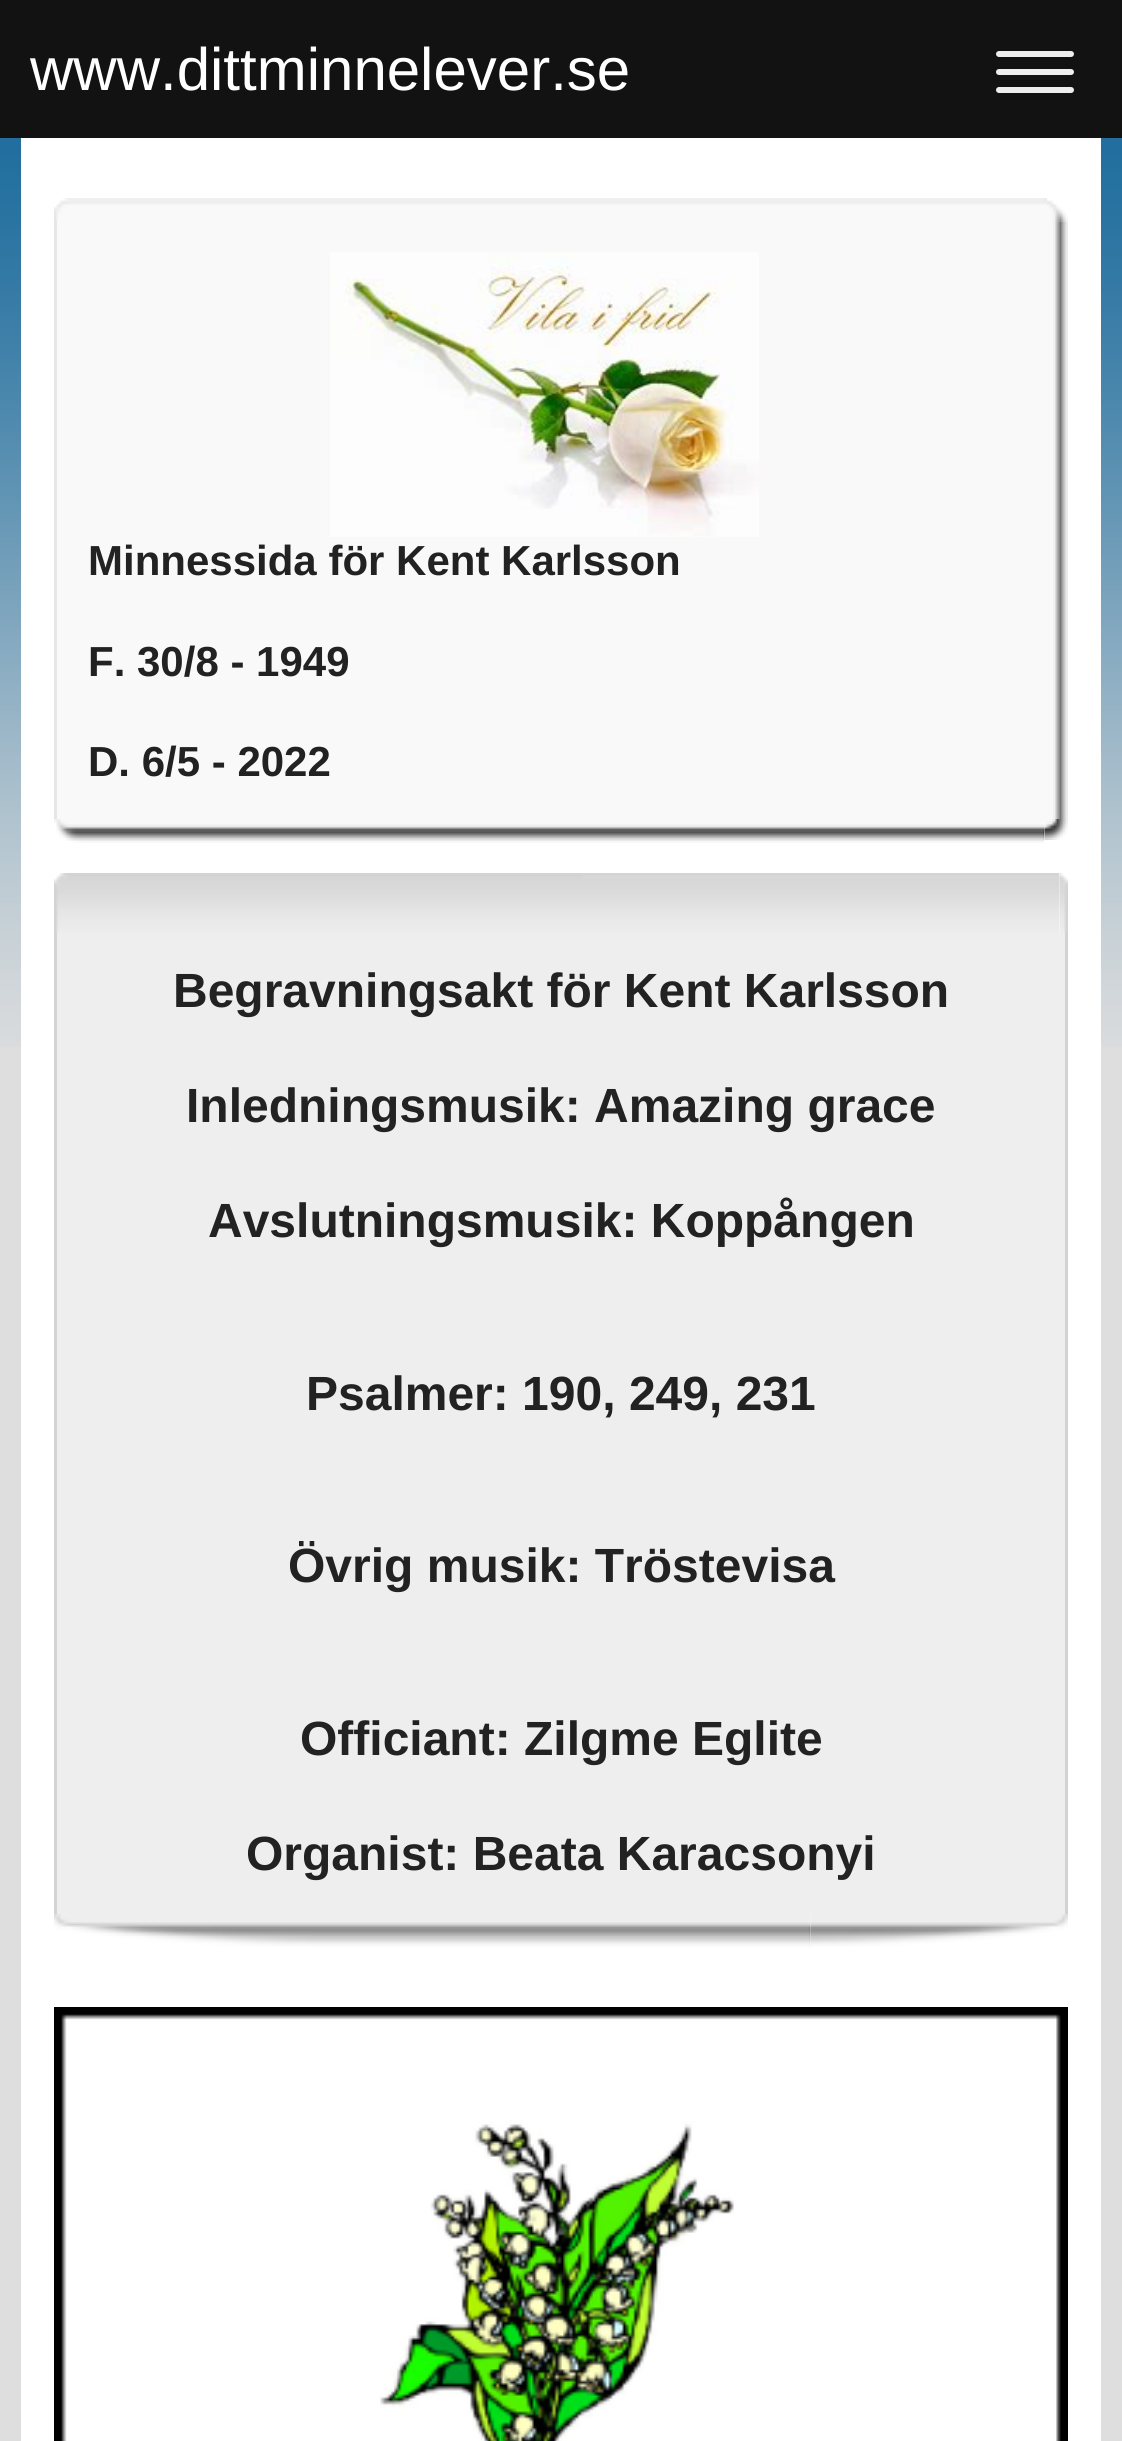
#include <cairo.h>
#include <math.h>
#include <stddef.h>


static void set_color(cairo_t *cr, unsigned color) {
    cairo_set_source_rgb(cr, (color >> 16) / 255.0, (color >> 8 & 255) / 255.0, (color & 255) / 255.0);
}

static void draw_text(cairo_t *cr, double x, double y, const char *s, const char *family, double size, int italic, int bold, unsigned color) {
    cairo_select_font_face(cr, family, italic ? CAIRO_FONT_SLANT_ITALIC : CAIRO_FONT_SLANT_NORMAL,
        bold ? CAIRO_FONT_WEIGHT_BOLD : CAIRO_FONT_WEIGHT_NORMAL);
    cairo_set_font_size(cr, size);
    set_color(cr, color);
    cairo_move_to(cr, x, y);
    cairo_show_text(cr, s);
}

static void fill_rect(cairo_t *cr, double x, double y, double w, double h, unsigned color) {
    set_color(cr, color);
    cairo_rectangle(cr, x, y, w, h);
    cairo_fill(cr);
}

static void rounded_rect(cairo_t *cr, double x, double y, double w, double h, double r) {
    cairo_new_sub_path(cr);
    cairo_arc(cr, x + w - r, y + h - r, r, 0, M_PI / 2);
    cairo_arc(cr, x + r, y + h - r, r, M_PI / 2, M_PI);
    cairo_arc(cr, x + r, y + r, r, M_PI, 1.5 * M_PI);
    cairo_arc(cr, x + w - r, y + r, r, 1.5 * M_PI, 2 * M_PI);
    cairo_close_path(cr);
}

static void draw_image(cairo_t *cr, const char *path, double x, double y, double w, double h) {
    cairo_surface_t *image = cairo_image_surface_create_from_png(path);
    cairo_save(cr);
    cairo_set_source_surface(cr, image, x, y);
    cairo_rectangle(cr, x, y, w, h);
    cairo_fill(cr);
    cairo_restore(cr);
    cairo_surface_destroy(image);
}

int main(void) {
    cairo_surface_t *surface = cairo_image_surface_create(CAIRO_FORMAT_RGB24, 1122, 2441);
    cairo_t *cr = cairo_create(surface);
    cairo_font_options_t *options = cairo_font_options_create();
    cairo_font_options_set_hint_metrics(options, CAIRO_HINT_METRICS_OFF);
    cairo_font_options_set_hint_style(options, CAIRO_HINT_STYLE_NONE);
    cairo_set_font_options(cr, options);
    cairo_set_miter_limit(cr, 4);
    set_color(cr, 0xDEDEDE);
    cairo_paint(cr);
    draw_image(cr, "assets/img1.png", 0, 138, 1122, 909);
    fill_rect(cr, 0, 0, 1122, 138, 0x121212);
    draw_text(cr, 30, 90, "www.dittminnelever.se", "Liberation Sans", 60, 0, 0, 0xFFFFFF);
    set_color(cr, 0xEEEEEE);
    rounded_rect(cr, 996, 51, 78, 6, 3);
    cairo_fill(cr);
    rounded_rect(cr, 996, 69, 78, 6, 3);
    cairo_fill(cr);
    rounded_rect(cr, 996, 87, 78, 6, 3);
    cairo_fill(cr);
    fill_rect(cr, 21, 138, 1080, 2303, 0xFFFFFF);
    draw_image(cr, "assets/img2.png", 1043, 198, 25, 24);
    draw_image(cr, "assets/img3.png", 54, 198, 993, 24);
    draw_image(cr, "assets/img4.png", 1053, 222, 15, 597);
    fill_rect(cr, 54, 222, 3, 597, 0xE6E6E6);
    fill_rect(cr, 57, 222, 996, 597, 0xF9F9F9);
    draw_image(cr, "assets/img5.png", 330, 252, 429, 285);
    draw_text(cr, 88, 575, "Minnessida för Kent Karlsson", "Liberation Sans", 42, 0, 1, 0x222222);
    draw_text(cr, 88, 676, "F. 30/8 - 1949", "Liberation Sans", 42, 0, 1, 0x222222);
    draw_text(cr, 88, 776, "D. 6/5 - 2022", "Liberation Sans", 42, 0, 1, 0x222222);
    draw_image(cr, "assets/img6.png", 1043, 819, 25, 21);
    draw_image(cr, "assets/img7.png", 54, 819, 990, 24);
    draw_image(cr, "assets/img8.png", 1058, 873, 10, 60);
    draw_image(cr, "assets/img9.png", 54, 873, 1005, 60);
    fill_rect(cr, 1065, 933, 3, 981, 0xD3D3D3);
    fill_rect(cr, 54, 933, 3, 981, 0xD3D3D3);
    fill_rect(cr, 57, 933, 1008, 981, 0xEEEEEE);
    draw_text(cr, 173, 1007, "Begravningsakt för Kent Karlsson", "Liberation Sans", 48, 0, 1, 0x222222);
    draw_text(cr, 186, 1122, "Inledningsmusik: Amazing grace", "Liberation Sans", 48, 0, 1, 0x222222);
    draw_text(cr, 208, 1237, "Avslutningsmusik: Koppången", "Liberation Sans", 48, 0, 1, 0x222222);
    draw_text(cr, 306, 1410, "Psalmer: 190, 249, 231", "Liberation Sans", 48, 0, 1, 0x222222);
    draw_text(cr, 288, 1582, "Övrig musik: Tröstevisa", "Liberation Sans", 48, 0, 1, 0x222222);
    draw_text(cr, 300, 1755, "Officiant: Zilgme Eglite", "Liberation Sans", 48, 0, 1, 0x222222);
    draw_text(cr, 246, 1870, "Organist: Beata Karacsonyi", "Liberation Sans", 48, 0, 1, 0x222222);
    draw_image(cr, "assets/img10.png", 808, 1914, 260, 33);
    draw_image(cr, "assets/img11.png", 54, 1914, 756, 33);
    draw_image(cr, "assets/img12.png", 54, 2007, 1014, 434);
    cairo_surface_write_to_png(surface, "output.png");
    cairo_font_options_destroy(options);
    cairo_destroy(cr);
    cairo_surface_destroy(surface);
    return 0;
}
